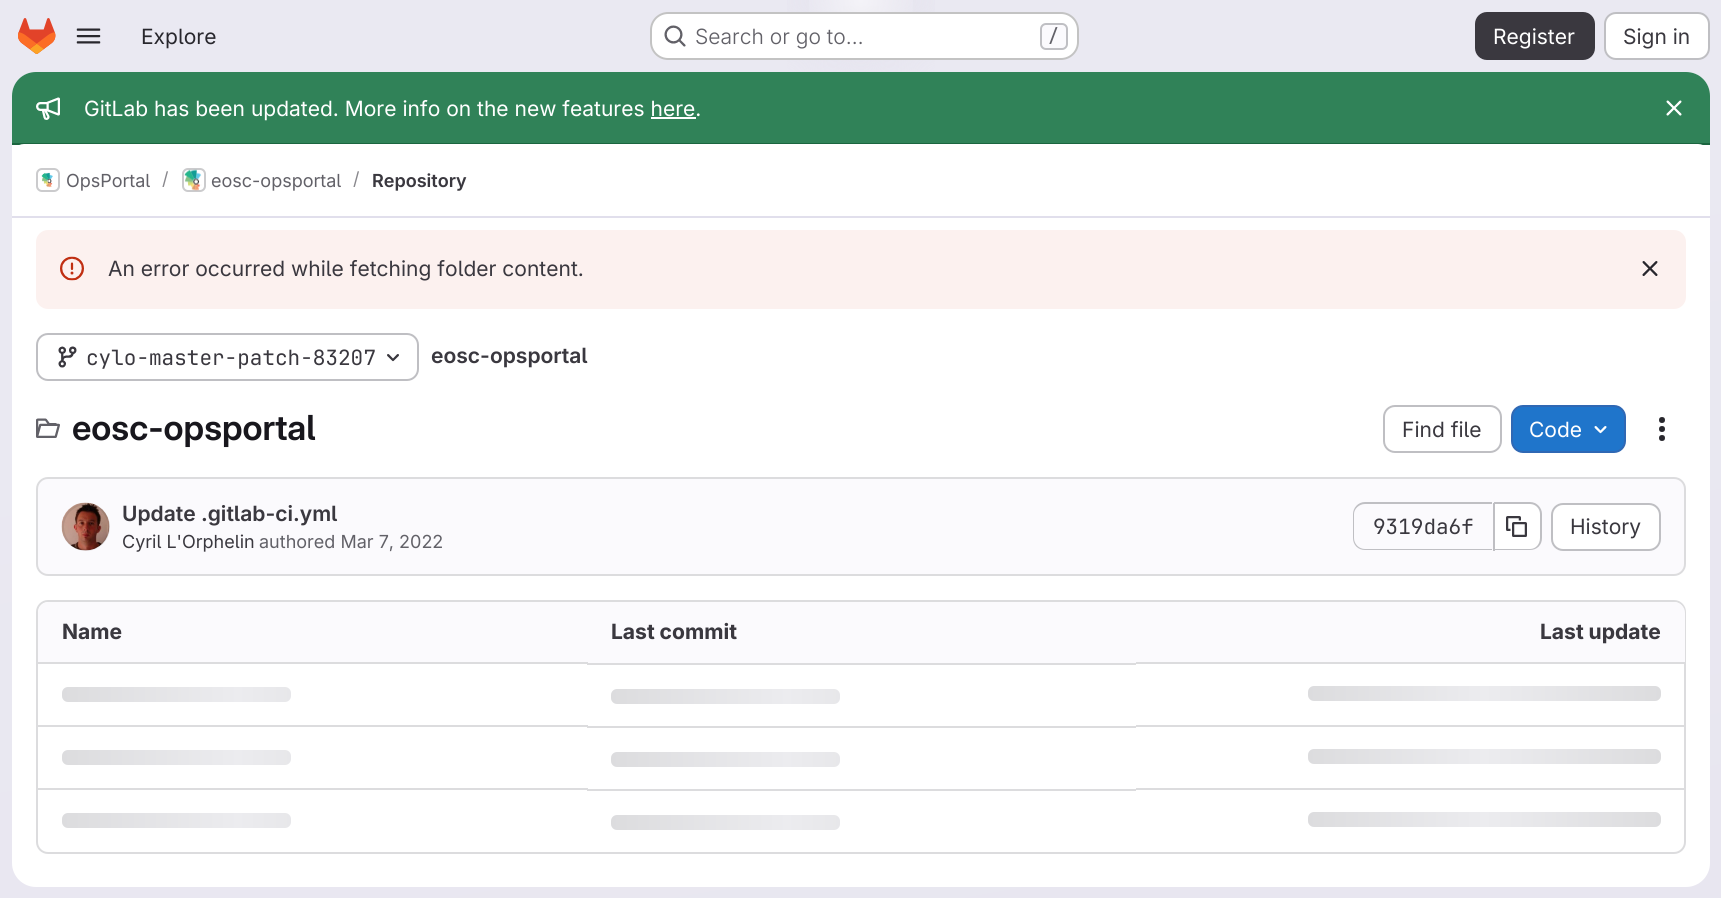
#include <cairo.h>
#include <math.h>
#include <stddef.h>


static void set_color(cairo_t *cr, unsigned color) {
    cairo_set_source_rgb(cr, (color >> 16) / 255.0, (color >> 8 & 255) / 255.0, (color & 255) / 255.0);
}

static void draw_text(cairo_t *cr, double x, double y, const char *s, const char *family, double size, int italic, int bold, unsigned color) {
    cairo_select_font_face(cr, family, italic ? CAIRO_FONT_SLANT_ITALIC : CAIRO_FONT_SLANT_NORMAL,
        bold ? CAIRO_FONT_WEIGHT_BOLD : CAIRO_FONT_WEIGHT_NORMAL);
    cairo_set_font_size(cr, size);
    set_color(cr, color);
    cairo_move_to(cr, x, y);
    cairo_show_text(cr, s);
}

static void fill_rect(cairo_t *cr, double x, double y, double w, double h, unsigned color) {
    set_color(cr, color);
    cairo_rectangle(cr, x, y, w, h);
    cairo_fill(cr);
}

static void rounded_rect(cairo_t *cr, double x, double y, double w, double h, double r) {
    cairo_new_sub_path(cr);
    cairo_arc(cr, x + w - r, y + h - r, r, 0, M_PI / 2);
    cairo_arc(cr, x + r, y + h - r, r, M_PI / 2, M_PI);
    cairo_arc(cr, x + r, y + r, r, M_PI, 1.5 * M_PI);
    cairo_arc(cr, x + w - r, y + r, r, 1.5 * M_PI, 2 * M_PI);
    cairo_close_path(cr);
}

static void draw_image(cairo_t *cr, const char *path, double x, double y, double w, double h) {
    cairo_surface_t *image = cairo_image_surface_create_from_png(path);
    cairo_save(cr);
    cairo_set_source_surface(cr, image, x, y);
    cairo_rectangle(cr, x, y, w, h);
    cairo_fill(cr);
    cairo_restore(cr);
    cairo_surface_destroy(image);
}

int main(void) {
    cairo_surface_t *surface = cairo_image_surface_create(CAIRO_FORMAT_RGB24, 1721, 898);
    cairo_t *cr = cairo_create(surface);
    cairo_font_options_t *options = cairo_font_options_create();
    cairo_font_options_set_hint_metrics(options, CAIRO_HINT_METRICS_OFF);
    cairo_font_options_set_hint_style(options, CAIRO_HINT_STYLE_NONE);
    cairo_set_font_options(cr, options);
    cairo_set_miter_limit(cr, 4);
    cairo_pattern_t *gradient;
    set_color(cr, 0xFFFFFF);
    cairo_paint(cr);
    gradient = cairo_pattern_create_linear(964, 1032, 758, -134);
    cairo_pattern_add_color_stop_rgba(gradient, 0, 0.91, 0.902, 0.941, 1);
    cairo_pattern_add_color_stop_rgba(gradient, 0.7, 0.918, 0.914, 0.949, 1);
    cairo_set_source(cr, gradient);
    cairo_pattern_destroy(gradient);
    cairo_rectangle(cr, 0, 0, 1721, 898);
    cairo_fill(cr);
    gradient = cairo_pattern_create_radial(0, 0, 0, 0, 0, 1);
    cairo_pattern_set_matrix(gradient, &(cairo_matrix_t){1.0 / 861, 0, 0, 1.0 / 899, -1.0 * 861 / 861, -1.0 * 0 / 899});
    cairo_pattern_add_color_stop_rgba(gradient, 0, 0.894, 0.886, 0.929, 1);
    cairo_pattern_add_color_stop_rgba(gradient, 0.12, 0.894, 0.886, 0.929, 0);
    cairo_set_source(cr, gradient);
    cairo_pattern_destroy(gradient);
    cairo_rectangle(cr, 787, 0, 148, 72);
    cairo_fill(cr);
    gradient = cairo_pattern_create_radial(0, 0, 0, 0, 0, 1);
    cairo_pattern_set_matrix(gradient, &(cairo_matrix_t){1.0 / 861, 0, 0, 1.0 / 899, -1.0 * 861 / 861, -1.0 * 0 / 899});
    cairo_pattern_add_color_stop_rgba(gradient, 0, 0.894, 0.886, 0.925, 1);
    cairo_pattern_add_color_stop_rgba(gradient, 0.09, 0.894, 0.886, 0.925, 0);
    cairo_set_source(cr, gradient);
    cairo_pattern_destroy(gradient);
    cairo_rectangle(cr, 843, 6, 36, 5);
    cairo_fill(cr);
    gradient = cairo_pattern_create_radial(861, 0, 0, 861, 0, 1244);
    cairo_pattern_add_color_stop_rgba(gradient, 0, 1, 1, 1, 0.6);
    cairo_pattern_add_color_stop_rgba(gradient, 0.05, 1, 1, 1, 0);
    cairo_set_source(cr, gradient);
    cairo_pattern_destroy(gradient);
    cairo_rectangle(cr, 809, 0, 104, 52);
    cairo_fill(cr);
    draw_image(cr, "assets/img1.png", 18, 18, 38, 36);
    draw_image(cr, "assets/img2.png", 76, 28, 25, 16);
    draw_text(cr, 141, 44, "Explore", "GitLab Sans", 21, 0, 0, 0x28272D);
    set_color(cr, 0xFFFFFF);
    rounded_rect(cr, 650, 12, 429, 48, 18);
    cairo_fill(cr);
    rounded_rect(cr, 651, 13, 427, 46, 17);
    cairo_set_source_rgba(cr, 0.02, 0.02, 0.024, 0.24);
    cairo_stroke(cr);
    draw_image(cr, "assets/img3.png", 664, 25, 22, 22);
    draw_text(cr, 695, 44, "Search or go to…", "GitLab Sans Light", 21, 0, 0, 0x626168);
    set_color(cr, 0xFBFAFD);
    rounded_rect(cr, 1041, 24, 26, 25, 5);
    cairo_fill_preserve(cr);
    set_color(cr, 0xBFBFC3);
    cairo_stroke(cr);
    draw_text(cr, 1048, 42, "/", "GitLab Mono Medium", 18, 0, 0, 0x626168);
    set_color(cr, 0x3A383F);
    rounded_rect(cr, 1476, 13, 118, 46, 11);
    cairo_fill_preserve(cr);
    cairo_stroke(cr);
    draw_text(cr, 1493, 44, "Register", "GitLab Sans", 21, 0, 0, 0xFFFFFF);
    rounded_rect(cr, 1605, 13, 104, 46, 11);
    cairo_fill_preserve(cr);
    set_color(cr, 0xBFBFC3);
    cairo_stroke(cr);
    draw_text(cr, 1623, 44, "Sign in", "GitLab Sans", 21, 0, 0, 0x3A383F);
    set_color(cr, 0xFFFFFF);
    rounded_rect(cr, 12, 72, 1698, 815, 24);
    cairo_fill(cr);
    set_color(cr, 0x308258);
    cairo_new_path(cr);
    cairo_move_to(cr, 36, 72);
    cairo_line_to(cr, 1686, 72);
    cairo_curve_to(cr, 1699.5, 72, 1710, 82.5, 1710, 96);
    cairo_line_to(cr, 1710, 144);
    cairo_line_to(cr, 12, 144);
    cairo_line_to(cr, 12, 96);
    cairo_curve_to(cr, 12, 82.5, 22.5, 72, 36, 72);
    cairo_close_path(cr);
    cairo_fill(cr);
    fill_rect(cr, 12, 143, 1698, 2, 0x1B653F);
    draw_image(cr, "assets/img4.png", 36, 97, 24, 23);
    draw_text(cr, 84, 116, "GitLab has been updated. More info on the new features here.", "GitLab Sans", 21, 0, 0, 0xFFFFFF);
    fill_rect(cr, 651, 117, 45, 2, 0xFFFFFF);
    draw_image(cr, "assets/img5.png", 1666, 100, 16, 16);
    cairo_new_path(cr);
    cairo_move_to(cr, 24, 144);
    cairo_line_to(cr, 1698, 144);
    cairo_curve_to(cr, 1704.5, 144, 1710, 149.5, 1710, 156);
    cairo_line_to(cr, 1710, 218);
    cairo_line_to(cr, 12, 218);
    cairo_line_to(cr, 12, 156);
    cairo_curve_to(cr, 12, 149.5, 17.5, 144, 24, 144);
    cairo_close_path(cr);
    cairo_fill(cr);
    fill_rect(cr, 12, 216, 1698, 2, 0xE1DFEC);
    rounded_rect(cr, 37, 169, 22, 22, 5);
    set_color(cr, 0xDCDCDE);
    cairo_stroke(cr);
    draw_image(cr, "assets/img6.png", 41, 172, 12, 16);
    rounded_rect(cr, 37, 169, 22, 22, 5);
    cairo_set_source_rgba(cr, 0.02, 0.02, 0.024, 0.08);
    cairo_stroke(cr);
    draw_text(cr, 66, 187, "OpsPortal", "GitLab Sans", 18, 0, 0, 0x626168);
    draw_text(cr, 162, 185, "/", "GitLab Sans", 18, 0, 0, 0x89888D);
    rounded_rect(cr, 183, 169, 22, 22, 5);
    set_color(cr, 0xDCDCDE);
    cairo_stroke(cr);
    draw_image(cr, "assets/img7.png", 184, 169, 18, 22);
    rounded_rect(cr, 183, 169, 22, 22, 5);
    cairo_set_source_rgba(cr, 0.02, 0.02, 0.024, 0.08);
    cairo_stroke(cr);
    draw_text(cr, 211, 187, "eosc-opsportal", "GitLab Sans", 18, 0, 0, 0x626168);
    draw_text(cr, 353, 185, "/", "GitLab Sans", 18, 0, 0, 0x89888D);
    draw_text(cr, 372, 187, "Repository", "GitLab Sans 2 SemiBold", 18, 0, 0, 0x3A383F);
    set_color(cr, 0xFCF1EF);
    rounded_rect(cr, 36, 230, 1650, 79, 12);
    cairo_fill(cr);
    draw_image(cr, "assets/img8.png", 60, 256, 24, 25);
    draw_text(cr, 108, 276, "An error occurred while fetching folder content.", "GitLab Sans", 21, 0, 0, 0x3A383F);
    draw_image(cr, "assets/img9.png", 1642, 261, 16, 15);
    rounded_rect(cr, 37, 334, 381, 46, 11);
    set_color(cr, 0xBFBFC3);
    cairo_stroke(cr);
    draw_image(cr, "assets/img10.png", 58, 346, 19, 22);
    draw_text(cr, 86, 365, "cylo-master-patch-83207", "GitLab Mono", 21, 0, 0, 0x3A383F);
    draw_image(cr, "assets/img11.png", 387, 354, 12, 8);
    draw_text(cr, 431, 363, "eosc-opsportal", "GitLab Sans 2 SemiBold", 21, 0, 0, 0x3A383F);
    draw_image(cr, "assets/img12.png", 36, 418, 24, 20);
    draw_text(cr, 72, 440, "eosc-opsportal", "GitLab Sans SemiBold", 34.5, 0, 0, 0x18171D);
    rounded_rect(cr, 1384, 406, 117, 46, 11);
    set_color(cr, 0xBFBFC3);
    cairo_stroke(cr);
    draw_text(cr, 1402, 437, "Find file", "GitLab Sans", 21, 0, 0, 0x3A383F);
    set_color(cr, 0x1F75CB);
    rounded_rect(cr, 1512, 406, 113, 46, 11);
    cairo_fill_preserve(cr);
    set_color(cr, 0x2F68B4);
    cairo_stroke(cr);
    draw_text(cr, 1529, 437, "Code", "GitLab Sans", 21, 0, 0, 0xFFFFFF);
    draw_image(cr, "assets/img13.png", 1594, 426, 13, 8);
    draw_image(cr, "assets/img14.png", 1659, 417, 6, 24);
    set_color(cr, 0xFBFAFD);
    rounded_rect(cr, 37, 478, 1648, 97, 11);
    cairo_fill_preserve(cr);
    set_color(cr, 0xDCDCDE);
    cairo_stroke(cr);
    draw_image(cr, "assets/img15.png", 61, 502, 49, 49);
    cairo_arc(cr, 86, 527, 23, 0, 2 * M_PI);
    cairo_set_source_rgba(cr, 0.02, 0.02, 0.024, 0.08);
    cairo_stroke(cr);
    draw_text(cr, 122, 521, "Update .gitlab-ci.yml", "GitLab Sans 2 SemiBold", 21, 0, 0, 0x3A383F);
    draw_text(cr, 122, 548, "Cyril L'Orphelin", "GitLab Sans", 18, 0, 0, 0x3A383F);
    draw_text(cr, 259, 548, "authored Mar 7, 2022", "GitLab Sans", 18, 0, 0, 0x626168);
    set_color(cr, 0xBFBFC3);
    cairo_set_fill_rule(cr, CAIRO_FILL_RULE_EVEN_ODD);
    cairo_new_path(cr);
    cairo_move_to(cr, 1365, 502);
    cairo_line_to(cr, 1492, 502);
    cairo_line_to(cr, 1492, 550);
    cairo_line_to(cr, 1365, 550);
    cairo_curve_to(cr, 1358, 550, 1353, 545, 1353, 538);
    cairo_line_to(cr, 1353, 514);
    cairo_curve_to(cr, 1353, 508, 1358, 502, 1365, 502);
    cairo_close_path(cr);
    cairo_move_to(cr, 1365, 504);
    cairo_line_to(cr, 1492, 504);
    cairo_line_to(cr, 1492, 549);
    cairo_line_to(cr, 1365, 549);
    cairo_curve_to(cr, 1359, 549, 1354, 544, 1354, 538);
    cairo_line_to(cr, 1354, 514);
    cairo_curve_to(cr, 1354, 509, 1359, 504, 1365, 504);
    cairo_close_path(cr);
    cairo_fill(cr);
    draw_text(cr, 1373, 534, "9319da6f", "GitLab Mono", 21, 0, 0, 0x3A383F);
    set_color(cr, 0xFFFFFF);
    cairo_new_path(cr);
    cairo_move_to(cr, 1494, 504);
    cairo_line_to(cr, 1530, 504);
    cairo_curve_to(cr, 1536, 504, 1541, 509, 1541, 515);
    cairo_line_to(cr, 1541, 538);
    cairo_curve_to(cr, 1541, 544, 1536, 549, 1530, 549);
    cairo_line_to(cr, 1494, 549);
    cairo_close_path(cr);
    cairo_fill(cr);
    set_color(cr, 0xBFBFC3);
    cairo_new_path(cr);
    cairo_move_to(cr, 1494, 502);
    cairo_line_to(cr, 1530, 502);
    cairo_curve_to(cr, 1537, 502, 1542, 508, 1542, 514);
    cairo_line_to(cr, 1542, 538);
    cairo_curve_to(cr, 1542, 545, 1537, 550, 1530, 550);
    cairo_line_to(cr, 1494, 550);
    cairo_close_path(cr);
    cairo_move_to(cr, 1494, 504);
    cairo_line_to(cr, 1530, 504);
    cairo_curve_to(cr, 1536, 504, 1540, 509, 1540, 514);
    cairo_line_to(cr, 1540, 538);
    cairo_curve_to(cr, 1540, 544, 1536, 549, 1530, 549);
    cairo_line_to(cr, 1494, 549);
    cairo_close_path(cr);
    cairo_fill(cr);
    fill_rect(cr, 1493, 503, 2, 48, 0xBFBFC3);
    draw_image(cr, "assets/img16.png", 1506, 516, 21, 21);
    set_color(cr, 0xFFFFFF);
    rounded_rect(cr, 1552, 504, 108, 46, 11);
    cairo_fill_preserve(cr);
    set_color(cr, 0xBFBFC3);
    cairo_stroke(cr);
    draw_text(cr, 1570, 534, "History", "GitLab Sans", 21, 0, 0, 0x3A383F);
    rounded_rect(cr, 37, 601, 1648, 252, 11);
    set_color(cr, 0xDCDCDE);
    cairo_stroke(cr);
    set_color(cr, 0xFBFAFD);
    cairo_new_path(cr);
    cairo_move_to(cr, 49, 602);
    cairo_line_to(cr, 587, 602);
    cairo_line_to(cr, 587, 663);
    cairo_line_to(cr, 38, 663);
    cairo_line_to(cr, 38, 613);
    cairo_curve_to(cr, 38, 607, 43, 602, 49, 602);
    cairo_close_path(cr);
    cairo_fill(cr);
    draw_text(cr, 62, 639, "Name", "GitLab Sans", 21, 0, 1, 0x3A383F);
    fill_rect(cr, 587, 602, 549, 61, 0xFBFAFD);
    draw_text(cr, 611, 639, "Last commit", "GitLab Sans", 21, 0, 1, 0x3A383F);
    set_color(cr, 0xFBFAFD);
    cairo_new_path(cr);
    cairo_move_to(cr, 1136, 602);
    cairo_line_to(cr, 1674, 602);
    cairo_curve_to(cr, 1680, 602, 1685, 607, 1685, 613);
    cairo_line_to(cr, 1685, 663);
    cairo_line_to(cr, 1136, 663);
    cairo_close_path(cr);
    cairo_fill(cr);
    draw_text(cr, 1540, 639, "Last update", "GitLab Sans", 21, 0, 1, 0x3A383F);
    fill_rect(cr, 587, 663, 549, 2, 0xDCDCDE);
    fill_rect(cr, 38, 662, 550, 2, 0xDCDCDE);
    gradient = cairo_pattern_create_linear(62, 687, 414, 687);
    cairo_pattern_add_color_stop_rgba(gradient, 0, 0.863, 0.863, 0.871, 1);
    cairo_pattern_add_color_stop_rgba(gradient, 0.5, 0.925, 0.925, 0.937, 1);
    cairo_pattern_add_color_stop_rgba(gradient, 1, 0.863, 0.863, 0.871, 1);
    cairo_set_source(cr, gradient);
    cairo_pattern_destroy(gradient);
    rounded_rect(cr, 62, 687, 229, 15, 6);
    cairo_fill(cr);
    gradient = cairo_pattern_create_linear(611, 689, 963, 689);
    cairo_pattern_add_color_stop_rgba(gradient, 0, 0.863, 0.863, 0.871, 1);
    cairo_pattern_add_color_stop_rgba(gradient, 0.5, 0.925, 0.925, 0.937, 1);
    cairo_pattern_add_color_stop_rgba(gradient, 1, 0.863, 0.863, 0.871, 1);
    cairo_set_source(cr, gradient);
    cairo_pattern_destroy(gradient);
    rounded_rect(cr, 611, 689, 229, 15, 6);
    cairo_fill(cr);
    fill_rect(cr, 1136, 662, 549, 2, 0xDCDCDE);
    gradient = cairo_pattern_create_linear(1308, 686, 1661, 686);
    cairo_pattern_add_color_stop_rgba(gradient, 0, 0.863, 0.863, 0.871, 1);
    cairo_pattern_add_color_stop_rgba(gradient, 0.5, 0.925, 0.925, 0.937, 1);
    cairo_pattern_add_color_stop_rgba(gradient, 1, 0.863, 0.863, 0.871, 1);
    cairo_set_source(cr, gradient);
    cairo_pattern_destroy(gradient);
    rounded_rect(cr, 1308, 686, 353, 15, 6);
    cairo_fill(cr);
    fill_rect(cr, 587, 726, 549, 2, 0xDCDCDE);
    fill_rect(cr, 38, 725, 550, 2, 0xDCDCDE);
    gradient = cairo_pattern_create_linear(62, 750, 414, 750);
    cairo_pattern_add_color_stop_rgba(gradient, 0, 0.863, 0.863, 0.871, 1);
    cairo_pattern_add_color_stop_rgba(gradient, 0.5, 0.925, 0.925, 0.937, 1);
    cairo_pattern_add_color_stop_rgba(gradient, 1, 0.863, 0.863, 0.871, 1);
    cairo_set_source(cr, gradient);
    cairo_pattern_destroy(gradient);
    rounded_rect(cr, 62, 750, 229, 15, 6);
    cairo_fill(cr);
    gradient = cairo_pattern_create_linear(611, 752, 963, 752);
    cairo_pattern_add_color_stop_rgba(gradient, 0, 0.863, 0.863, 0.871, 1);
    cairo_pattern_add_color_stop_rgba(gradient, 0.5, 0.925, 0.925, 0.937, 1);
    cairo_pattern_add_color_stop_rgba(gradient, 1, 0.863, 0.863, 0.871, 1);
    cairo_set_source(cr, gradient);
    cairo_pattern_destroy(gradient);
    rounded_rect(cr, 611, 752, 229, 15, 6);
    cairo_fill(cr);
    fill_rect(cr, 1136, 725, 549, 2, 0xDCDCDE);
    gradient = cairo_pattern_create_linear(1308, 749, 1661, 749);
    cairo_pattern_add_color_stop_rgba(gradient, 0, 0.863, 0.863, 0.871, 1);
    cairo_pattern_add_color_stop_rgba(gradient, 0.5, 0.925, 0.925, 0.937, 1);
    cairo_pattern_add_color_stop_rgba(gradient, 1, 0.863, 0.863, 0.871, 1);
    cairo_set_source(cr, gradient);
    cairo_pattern_destroy(gradient);
    rounded_rect(cr, 1308, 749, 353, 15, 6);
    cairo_fill(cr);
    fill_rect(cr, 587, 789, 549, 2, 0xDCDCDE);
    fill_rect(cr, 38, 788, 550, 2, 0xDCDCDE);
    gradient = cairo_pattern_create_linear(62, 813, 414, 813);
    cairo_pattern_add_color_stop_rgba(gradient, 0, 0.863, 0.863, 0.871, 1);
    cairo_pattern_add_color_stop_rgba(gradient, 0.5, 0.925, 0.925, 0.937, 1);
    cairo_pattern_add_color_stop_rgba(gradient, 1, 0.863, 0.863, 0.871, 1);
    cairo_set_source(cr, gradient);
    cairo_pattern_destroy(gradient);
    rounded_rect(cr, 62, 813, 229, 15, 6);
    cairo_fill(cr);
    gradient = cairo_pattern_create_linear(611, 815, 963, 815);
    cairo_pattern_add_color_stop_rgba(gradient, 0, 0.863, 0.863, 0.871, 1);
    cairo_pattern_add_color_stop_rgba(gradient, 0.5, 0.925, 0.925, 0.937, 1);
    cairo_pattern_add_color_stop_rgba(gradient, 1, 0.863, 0.863, 0.871, 1);
    cairo_set_source(cr, gradient);
    cairo_pattern_destroy(gradient);
    rounded_rect(cr, 611, 815, 229, 15, 6);
    cairo_fill(cr);
    fill_rect(cr, 1136, 788, 549, 2, 0xDCDCDE);
    gradient = cairo_pattern_create_linear(1308, 812, 1661, 812);
    cairo_pattern_add_color_stop_rgba(gradient, 0, 0.863, 0.863, 0.871, 1);
    cairo_pattern_add_color_stop_rgba(gradient, 0.5, 0.925, 0.925, 0.937, 1);
    cairo_pattern_add_color_stop_rgba(gradient, 1, 0.863, 0.863, 0.871, 1);
    cairo_set_source(cr, gradient);
    cairo_pattern_destroy(gradient);
    rounded_rect(cr, 1308, 812, 353, 15, 6);
    cairo_fill(cr);
    cairo_surface_write_to_png(surface, "output.png");
    cairo_font_options_destroy(options);
    cairo_destroy(cr);
    cairo_surface_destroy(surface);
    return 0;
}
